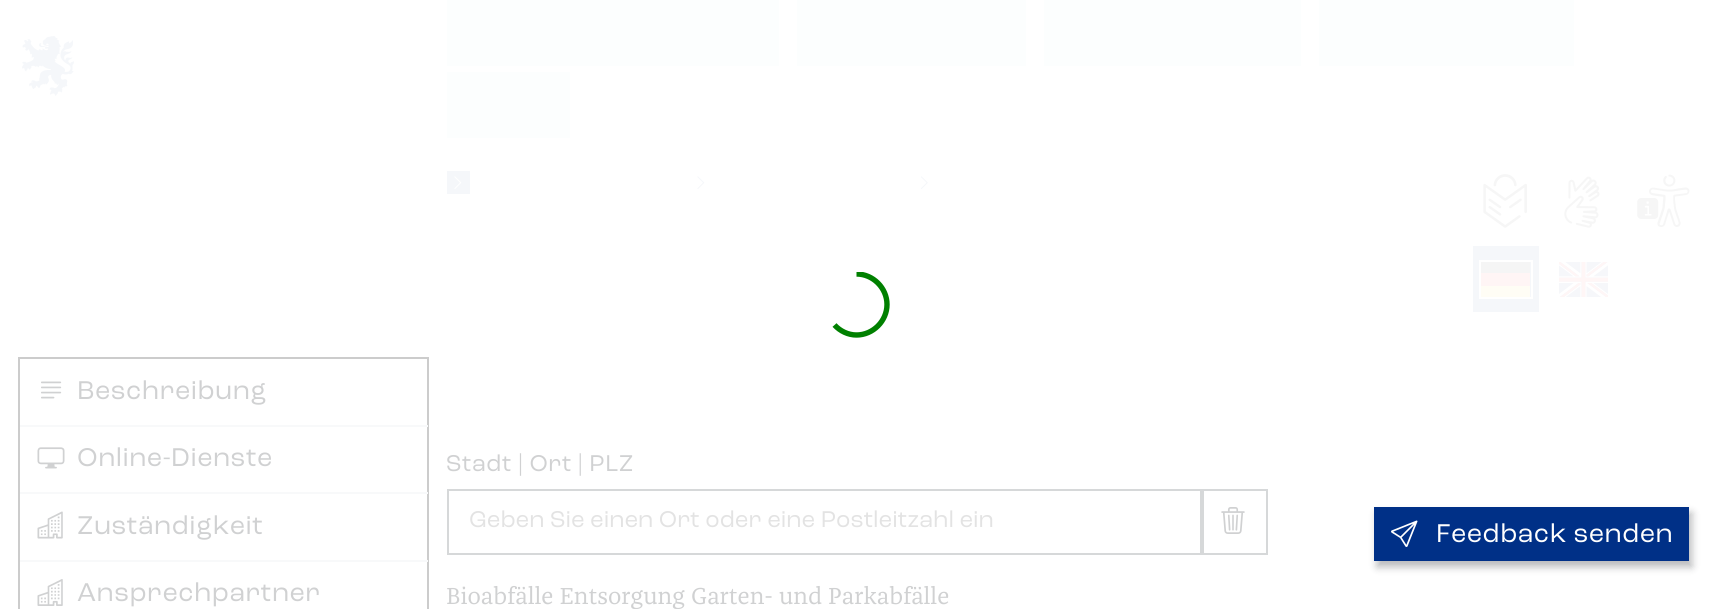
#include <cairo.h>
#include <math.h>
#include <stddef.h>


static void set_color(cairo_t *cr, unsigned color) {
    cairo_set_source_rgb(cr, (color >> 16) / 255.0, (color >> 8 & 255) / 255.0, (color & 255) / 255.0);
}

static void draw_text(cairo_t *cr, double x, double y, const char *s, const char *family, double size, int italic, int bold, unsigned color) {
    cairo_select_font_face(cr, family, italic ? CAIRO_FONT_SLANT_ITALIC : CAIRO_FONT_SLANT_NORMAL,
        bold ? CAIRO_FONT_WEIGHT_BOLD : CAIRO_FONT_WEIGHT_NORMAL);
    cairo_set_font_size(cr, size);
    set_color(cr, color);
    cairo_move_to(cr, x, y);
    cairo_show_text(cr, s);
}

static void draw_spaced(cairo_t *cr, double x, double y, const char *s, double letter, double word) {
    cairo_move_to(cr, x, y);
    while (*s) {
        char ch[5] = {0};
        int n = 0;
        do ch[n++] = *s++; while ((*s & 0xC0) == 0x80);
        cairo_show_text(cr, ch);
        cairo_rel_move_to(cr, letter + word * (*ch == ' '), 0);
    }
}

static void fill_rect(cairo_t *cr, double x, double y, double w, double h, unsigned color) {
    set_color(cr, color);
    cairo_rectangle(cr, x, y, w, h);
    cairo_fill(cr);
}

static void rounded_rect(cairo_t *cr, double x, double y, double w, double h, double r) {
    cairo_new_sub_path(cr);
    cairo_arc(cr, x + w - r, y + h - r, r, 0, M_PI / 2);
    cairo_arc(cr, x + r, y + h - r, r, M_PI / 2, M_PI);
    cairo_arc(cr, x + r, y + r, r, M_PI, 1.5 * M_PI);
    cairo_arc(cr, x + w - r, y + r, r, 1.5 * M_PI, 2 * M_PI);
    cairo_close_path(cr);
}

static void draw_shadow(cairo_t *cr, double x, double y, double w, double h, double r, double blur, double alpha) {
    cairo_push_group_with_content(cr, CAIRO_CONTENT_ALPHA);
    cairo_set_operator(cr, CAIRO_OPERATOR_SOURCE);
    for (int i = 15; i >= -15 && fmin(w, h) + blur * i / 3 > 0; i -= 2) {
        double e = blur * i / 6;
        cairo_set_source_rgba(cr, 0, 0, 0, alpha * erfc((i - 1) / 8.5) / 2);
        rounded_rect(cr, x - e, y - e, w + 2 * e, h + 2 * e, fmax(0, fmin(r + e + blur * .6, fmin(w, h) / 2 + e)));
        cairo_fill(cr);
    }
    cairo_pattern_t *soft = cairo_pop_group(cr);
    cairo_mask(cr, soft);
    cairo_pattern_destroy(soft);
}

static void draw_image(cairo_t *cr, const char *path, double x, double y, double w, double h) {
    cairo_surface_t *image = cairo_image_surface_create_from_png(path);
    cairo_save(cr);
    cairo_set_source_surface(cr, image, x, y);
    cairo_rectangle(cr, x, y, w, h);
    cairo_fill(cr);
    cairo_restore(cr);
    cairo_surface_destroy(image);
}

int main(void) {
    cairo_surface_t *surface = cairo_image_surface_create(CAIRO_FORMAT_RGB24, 1713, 609);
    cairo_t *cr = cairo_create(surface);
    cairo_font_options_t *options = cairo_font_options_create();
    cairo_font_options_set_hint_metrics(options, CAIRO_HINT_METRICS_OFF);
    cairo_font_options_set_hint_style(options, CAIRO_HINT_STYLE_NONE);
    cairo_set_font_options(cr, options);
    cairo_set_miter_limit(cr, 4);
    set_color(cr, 0xFFFFFF);
    cairo_paint(cr);
    draw_image(cr, "assets/img1.png", 22, 36, 52, 60);
    fill_rect(cr, 447, 0, 332, 66, 0xFCFEFE);
    fill_rect(cr, 797, 0, 229, 66, 0xFCFEFE);
    fill_rect(cr, 1044, 0, 257, 66, 0xFCFEFE);
    fill_rect(cr, 1319, 0, 255, 66, 0xFCFEFE);
    fill_rect(cr, 447, 72, 123, 66, 0xFCFEFE);
    fill_rect(cr, 447, 171, 23, 23, 0xF5F7FA);
    draw_image(cr, "assets/img2.png", 454, 176, 8, 13);
    draw_image(cr, "assets/img3.png", 697, 176, 8, 13);
    draw_image(cr, "assets/img4.png", 920, 176, 8, 13);
    draw_image(cr, "assets/img5.png", 1483, 174, 44, 54);
    draw_image(cr, "assets/img6.png", 1564, 176, 36, 52);
    draw_image(cr, "assets/img7.png", 1637, 174, 53, 53);
    fill_rect(cr, 1473, 246, 66, 66, 0xF5F7FA);
    fill_rect(cr, 1481, 262, 49, 11, 0xF5F5F5);
    fill_rect(cr, 1481, 273, 49, 13, 0xFFF5F5);
    fill_rect(cr, 1481, 286, 49, 11, 0xFFFDF5);
    cairo_rectangle(cr, 1480, 261, 52, 37);
    set_color(cr, 0xFFFFFF);
    cairo_stroke(cr);
    draw_image(cr, "assets/img8.png", 1559, 262, 49, 35);
    cairo_save(cr);
    cairo_rectangle(cr, 824, 272, 66, 66);
    cairo_clip(cr);
    cairo_new_path(cr);
    cairo_move_to(cr, 856.5, 274);
    cairo_curve_to(cr, 873, 274, 887, 288, 887, 304.5);
    cairo_curve_to(cr, 887, 321, 873, 335, 856.5, 335);
    cairo_curve_to(cr, 848, 335, 840, 331, 834.5, 325);
    set_color(cr, 0x008000);
    cairo_set_line_width(cr, 5.4);
    cairo_stroke(cr);
    cairo_restore(cr);
    cairo_rectangle(cr, 19, 358, 409, 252);
    set_color(cr, 0xCCCCCC);
    cairo_stroke(cr);
    draw_image(cr, "assets/img9.png", 41, 381, 21, 18);
    cairo_select_font_face(cr, "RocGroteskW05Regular", CAIRO_FONT_SLANT_NORMAL, CAIRO_FONT_WEIGHT_NORMAL);
    cairo_set_font_size(cr, 27);
    set_color(cr, 0xD0D1D2);
    draw_spaced(cr, 77, 399, "Beschreibung", 0.5, 0);
    fill_rect(cr, 20, 425, 408, 2, 0xF8F9FA);
    draw_image(cr, "assets/img10.png", 37, 447, 28, 22);
    set_color(cr, 0xD0D1D2);
    draw_spaced(cr, 77, 466, "Online-Dienste", 0.5, 0);
    fill_rect(cr, 20, 492, 408, 2, 0xF8F9FA);
    draw_image(cr, "assets/img11.png", 37, 511, 26, 28);
    set_color(cr, 0xD0D1D2);
    draw_spaced(cr, 77, 534, "Zuständigkeit", 0.5, 0);
    fill_rect(cr, 20, 560, 408, 2, 0xF8F9FA);
    draw_image(cr, "assets/img12.png", 37, 579, 26, 27);
    set_color(cr, 0xD0D1D2);
    draw_spaced(cr, 77, 601, "Ansprechpartner", 0.5, 0);
    cairo_set_font_size(cr, 24);
    draw_spaced(cr, 446, 471, "Stadt | Ort | PLZ", 0.5, 0);
    cairo_rectangle(cr, 448, 490, 753, 64);
    set_color(cr, 0xD6D8D9);
    cairo_stroke(cr);
    draw_text(cr, 469, 527, "Geben Sie einen Ort oder eine Postleitzahl ein", "RocGroteskW05Regular", 24, 0, 0, 0xE3E3E3);
    cairo_rectangle(cr, 1203, 490, 64, 64);
    set_color(cr, 0xD6D8D9);
    cairo_stroke(cr);
    draw_image(cr, "assets/img13.png", 1221, 507, 24, 27);
    draw_text(cr, 446, 604, "Bioabfälle Entsorgung Garten- und Parkabfälle", "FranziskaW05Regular", 24, 0, 0, 0xD0D1D2);
    set_color(cr, 0x16191F);
    draw_shadow(cr, 1377, 513, 315, 54, 0, 4, 0.3);
    fill_rect(cr, 1374, 507, 315, 54, 0x003087);
    draw_image(cr, "assets/img14.png", 1391, 520, 27, 27);
    cairo_select_font_face(cr, "RocGroteskW05Regular", CAIRO_FONT_SLANT_NORMAL, CAIRO_FONT_WEIGHT_NORMAL);
    cairo_set_font_size(cr, 27);
    set_color(cr, 0xFFFFFF);
    draw_spaced(cr, 1436, 542, "Feedback senden", 0.5, 0);
    cairo_surface_write_to_png(surface, "output.png");
    cairo_font_options_destroy(options);
    cairo_destroy(cr);
    cairo_surface_destroy(surface);
    return 0;
}
